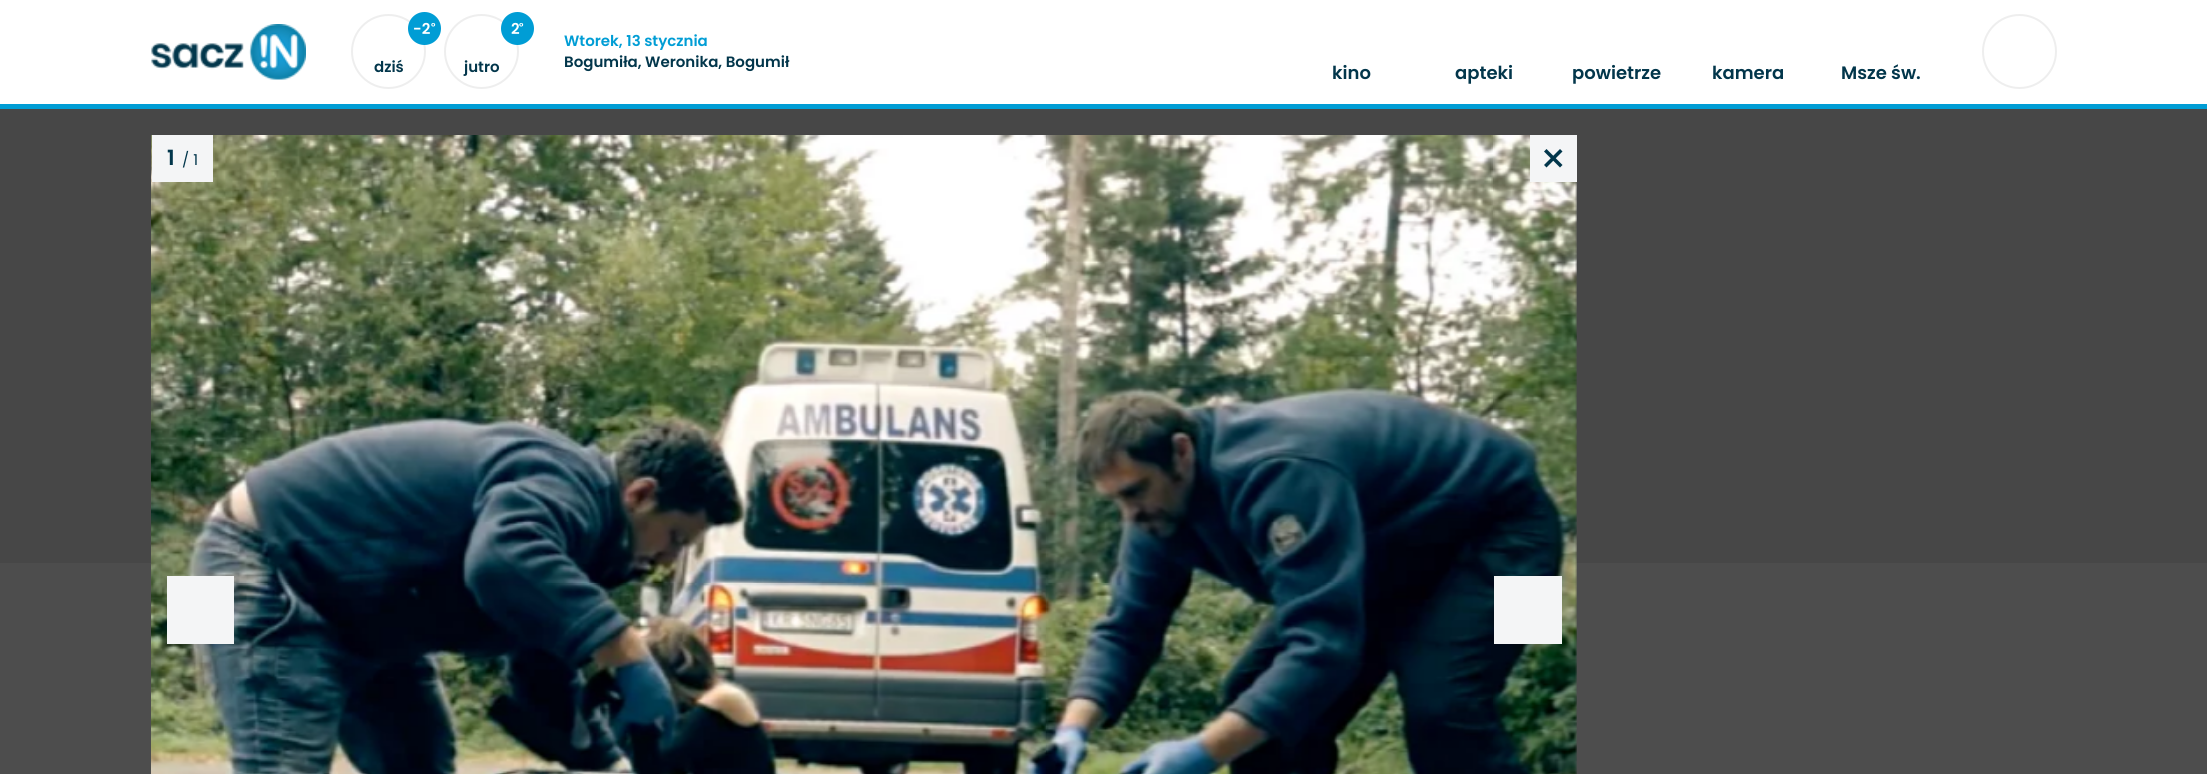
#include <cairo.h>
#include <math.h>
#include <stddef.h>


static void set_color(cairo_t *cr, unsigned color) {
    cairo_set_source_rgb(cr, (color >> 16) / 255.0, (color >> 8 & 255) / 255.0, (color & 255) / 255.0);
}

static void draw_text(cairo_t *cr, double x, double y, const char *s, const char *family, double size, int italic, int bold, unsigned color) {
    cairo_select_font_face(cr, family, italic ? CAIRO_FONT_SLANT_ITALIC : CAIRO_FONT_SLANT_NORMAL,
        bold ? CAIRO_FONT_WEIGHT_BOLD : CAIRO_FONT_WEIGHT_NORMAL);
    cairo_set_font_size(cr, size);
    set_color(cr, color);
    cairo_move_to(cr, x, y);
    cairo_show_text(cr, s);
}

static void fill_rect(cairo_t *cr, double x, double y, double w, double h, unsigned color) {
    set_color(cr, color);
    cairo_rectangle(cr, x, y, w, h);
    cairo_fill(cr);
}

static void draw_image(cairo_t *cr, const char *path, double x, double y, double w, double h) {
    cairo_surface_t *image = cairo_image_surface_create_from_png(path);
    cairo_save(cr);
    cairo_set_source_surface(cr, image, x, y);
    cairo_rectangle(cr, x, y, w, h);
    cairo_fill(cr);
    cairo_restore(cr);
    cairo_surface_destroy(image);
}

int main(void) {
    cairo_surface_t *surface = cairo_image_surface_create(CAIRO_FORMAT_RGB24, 2207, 774);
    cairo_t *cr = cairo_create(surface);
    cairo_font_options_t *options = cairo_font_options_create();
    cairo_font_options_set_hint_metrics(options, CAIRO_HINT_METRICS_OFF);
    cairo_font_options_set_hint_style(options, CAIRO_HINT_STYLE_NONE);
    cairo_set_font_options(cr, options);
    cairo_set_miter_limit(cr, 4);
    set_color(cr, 0x4D4D4D);
    cairo_paint(cr);
    fill_rect(cr, 0, 0, 2207, 104, 0xFFFFFF);
    fill_rect(cr, 0, 104, 2207, 5, 0x009DD5);
    draw_image(cr, "assets/img1.png", 151, 24, 155, 56);
    cairo_arc(cr, 388.5, 51.5, 36.5, 0, 2 * M_PI);
    set_color(cr, 0xEEEEEE);
    cairo_stroke(cr);
    set_color(cr, 0x009DD5);
    cairo_arc(cr, 424.5, 28.5, 16.5, 0, 2 * M_PI);
    cairo_fill(cr);
    draw_text(cr, 413, 34, "-2", "Poppins SemiBold", 15, 0, 0, 0xFFFFFF);
    draw_text(cr, 431, 30, "°", "Poppins SemiBold", 10, 0, 0, 0xFFFFFF);
    draw_text(cr, 374, 72, "dziś", "Poppins SemiBold", 15, 0, 0, 0x02364B);
    cairo_new_path(cr);
    cairo_arc(cr, 481.5, 51.5, 36.5, 0, 2 * M_PI);
    set_color(cr, 0xEEEEEE);
    cairo_stroke(cr);
    set_color(cr, 0x009DD5);
    cairo_arc(cr, 517.5, 28.5, 16.5, 0, 2 * M_PI);
    cairo_fill(cr);
    draw_text(cr, 511, 34, "2", "Poppins SemiBold", 15, 0, 0, 0xFFFFFF);
    draw_text(cr, 519, 30, "°", "Poppins SemiBold", 10, 0, 0, 0xFFFFFF);
    draw_text(cr, 464, 72, "jutro", "Poppins SemiBold", 15, 0, 0, 0x02364B);
    draw_text(cr, 564, 46, "Wtorek, 13 stycznia", "Poppins SemiBold", 15, 0, 0, 0x009DD5);
    draw_text(cr, 564, 67, "Bogumiła, Weronika, Bogumił", "Poppins SemiBold", 15, 0, 0, 0x02364B);
    draw_text(cr, 1332, 79, "kino", "Poppins SemiBold", 18, 0, 0, 0x02364B);
    draw_text(cr, 1455, 79, "apteki", "Poppins SemiBold", 18, 0, 0, 0x02364B);
    draw_text(cr, 1572, 79, "powietrze", "Poppins SemiBold", 18, 0, 0, 0x02364B);
    draw_text(cr, 1712, 79, "kamera", "Poppins SemiBold", 18, 0, 0, 0x02364B);
    draw_text(cr, 1841, 79, "Msze św.", "Poppins SemiBold", 18, 0, 0, 0x02364B);
    cairo_new_path(cr);
    cairo_arc(cr, 2019.5, 51.5, 36.5, 0, 2 * M_PI);
    set_color(cr, 0xEEEEEE);
    cairo_stroke(cr);
    fill_rect(cr, 0, 109, 2207, 454, 0x474747);
    draw_image(cr, "assets/img2.png", 151, 135, 1426, 639);
    fill_rect(cr, 152, 135, 61, 47, 0xF4F5F6);
    draw_text(cr, 167, 165, "1", "Poppins SemiBold", 21, 0, 0, 0x02364B);
    draw_text(cr, 182, 165, "/ 1", "Poppins", 15, 0, 0, 0x02364B);
    fill_rect(cr, 1530, 135, 47, 47, 0xF4F5F6);
    set_color(cr, 0x02364B);
    cairo_new_path(cr);
    cairo_move_to(cr, 1546.5, 149);
    cairo_line_to(cr, 1562.5, 165);
    cairo_line_to(cr, 1560, 167.5);
    cairo_line_to(cr, 1544, 151.5);
    cairo_close_path(cr);
    cairo_fill(cr);
    cairo_new_path(cr);
    cairo_move_to(cr, 1544, 165);
    cairo_line_to(cr, 1560, 149);
    cairo_line_to(cr, 1562.5, 151.5);
    cairo_line_to(cr, 1546.5, 167.5);
    cairo_close_path(cr);
    cairo_fill(cr);
    fill_rect(cr, 167, 576, 67, 68, 0xF4F5F6);
    fill_rect(cr, 1494, 576, 68, 68, 0xF4F5F6);
    cairo_surface_write_to_png(surface, "output.png");
    cairo_font_options_destroy(options);
    cairo_destroy(cr);
    cairo_surface_destroy(surface);
    return 0;
}
